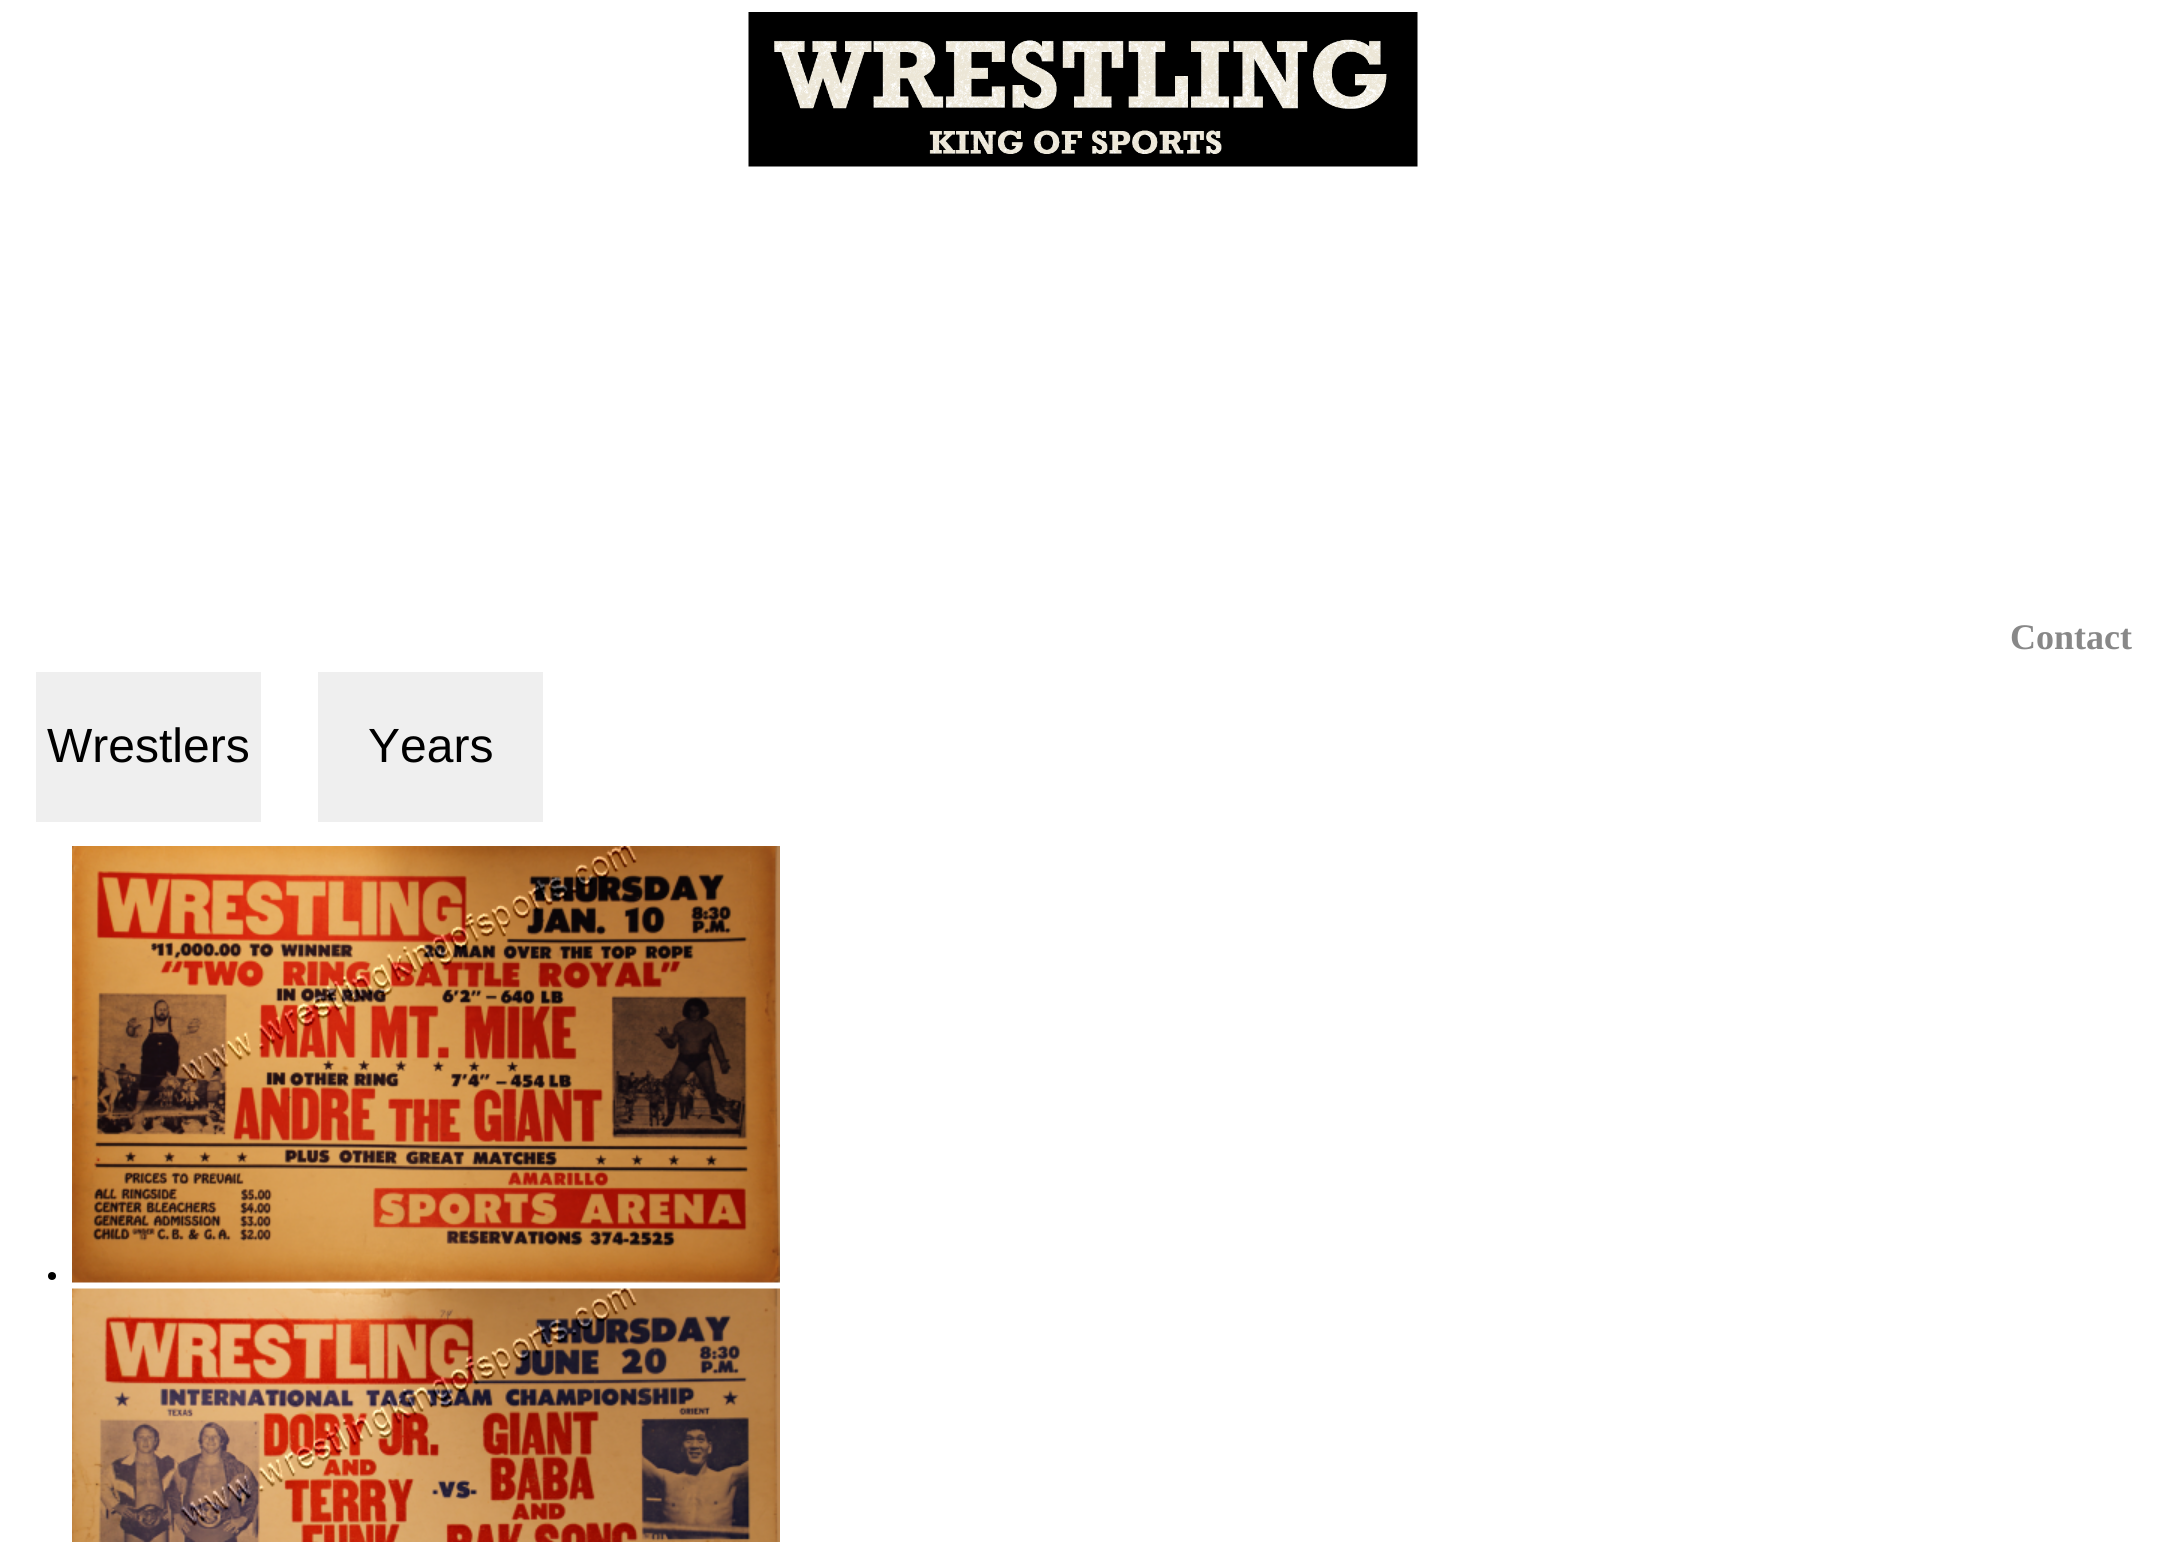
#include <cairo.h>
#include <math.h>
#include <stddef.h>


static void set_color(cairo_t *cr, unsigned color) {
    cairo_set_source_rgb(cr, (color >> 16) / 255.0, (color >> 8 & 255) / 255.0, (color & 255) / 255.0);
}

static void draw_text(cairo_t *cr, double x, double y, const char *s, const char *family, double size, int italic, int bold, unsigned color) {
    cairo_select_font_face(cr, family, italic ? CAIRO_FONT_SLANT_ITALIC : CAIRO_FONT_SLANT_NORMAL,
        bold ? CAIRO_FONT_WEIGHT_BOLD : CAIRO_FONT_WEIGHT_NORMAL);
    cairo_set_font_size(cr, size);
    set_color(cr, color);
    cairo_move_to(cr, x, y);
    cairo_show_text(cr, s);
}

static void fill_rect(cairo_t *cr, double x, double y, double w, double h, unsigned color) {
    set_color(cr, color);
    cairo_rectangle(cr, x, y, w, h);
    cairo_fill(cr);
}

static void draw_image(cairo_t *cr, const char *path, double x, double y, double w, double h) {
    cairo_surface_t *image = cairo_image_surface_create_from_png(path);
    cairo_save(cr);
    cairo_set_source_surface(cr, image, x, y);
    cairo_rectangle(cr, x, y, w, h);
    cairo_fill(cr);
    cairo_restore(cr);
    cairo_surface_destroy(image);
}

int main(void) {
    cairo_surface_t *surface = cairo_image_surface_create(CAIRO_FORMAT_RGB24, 2166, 1542);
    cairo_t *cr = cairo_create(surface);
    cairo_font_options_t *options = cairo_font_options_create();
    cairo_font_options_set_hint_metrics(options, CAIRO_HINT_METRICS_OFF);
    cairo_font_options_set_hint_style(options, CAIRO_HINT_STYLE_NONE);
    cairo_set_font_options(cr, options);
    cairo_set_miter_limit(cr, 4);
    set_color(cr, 0xFFFFFF);
    cairo_paint(cr);
    draw_image(cr, "assets/img1.png", 748, 12, 670, 155);
    draw_text(cr, 2010, 649, "Contact", "Liberation Serif", 36, 0, 1, 0x888888);
    fill_rect(cr, 36, 672, 225, 150, 0xEFEFEF);
    draw_text(cr, 47, 762, "Wrestlers", "Liberation Sans", 48, 0, 0, 0x000000);
    fill_rect(cr, 318, 672, 225, 150, 0xEFEFEF);
    draw_text(cr, 368, 762, "Years", "Liberation Sans", 48, 0, 0, 0x000000);
    cairo_new_path(cr);
    cairo_arc(cr, 52, 1276, 4, 0, 2 * M_PI);
    cairo_fill(cr);
    draw_image(cr, "assets/img2.png", 72, 846, 708, 437);
    draw_image(cr, "assets/img3.png", 72, 1288, 708, 254);
    cairo_surface_write_to_png(surface, "output.png");
    cairo_font_options_destroy(options);
    cairo_destroy(cr);
    cairo_surface_destroy(surface);
    return 0;
}
